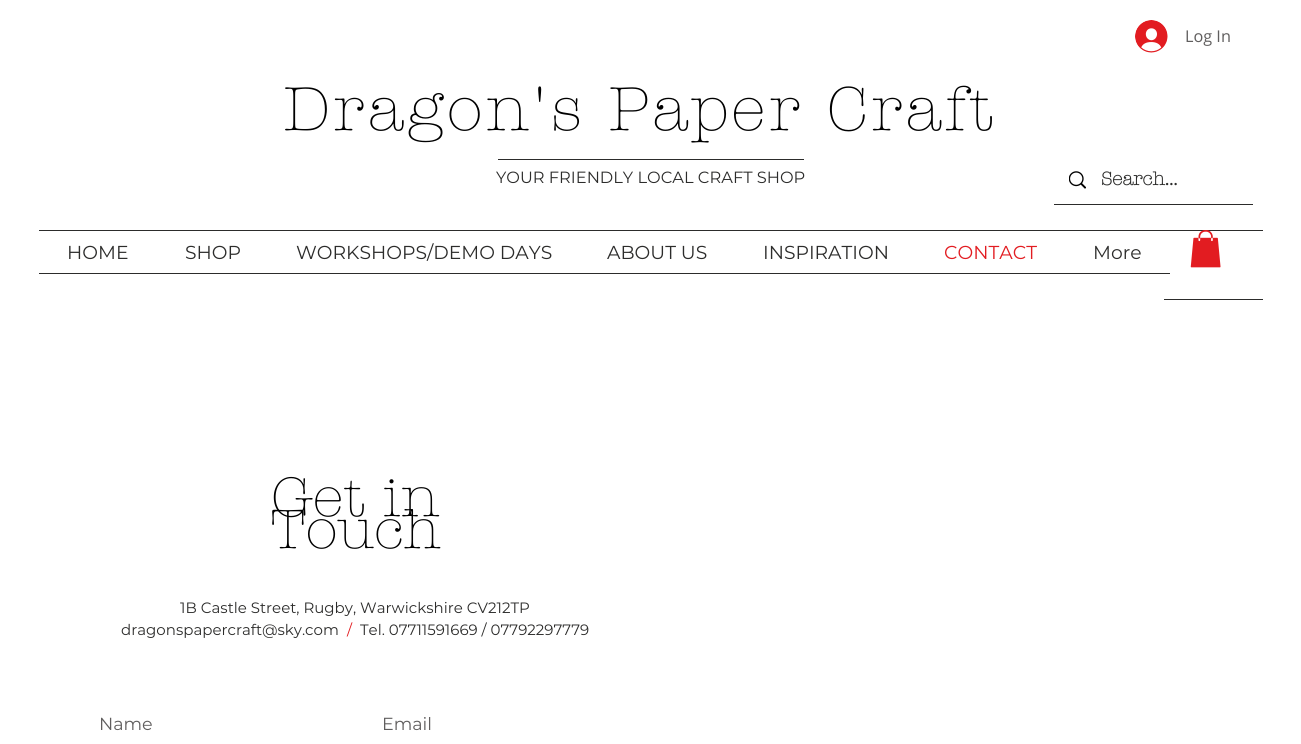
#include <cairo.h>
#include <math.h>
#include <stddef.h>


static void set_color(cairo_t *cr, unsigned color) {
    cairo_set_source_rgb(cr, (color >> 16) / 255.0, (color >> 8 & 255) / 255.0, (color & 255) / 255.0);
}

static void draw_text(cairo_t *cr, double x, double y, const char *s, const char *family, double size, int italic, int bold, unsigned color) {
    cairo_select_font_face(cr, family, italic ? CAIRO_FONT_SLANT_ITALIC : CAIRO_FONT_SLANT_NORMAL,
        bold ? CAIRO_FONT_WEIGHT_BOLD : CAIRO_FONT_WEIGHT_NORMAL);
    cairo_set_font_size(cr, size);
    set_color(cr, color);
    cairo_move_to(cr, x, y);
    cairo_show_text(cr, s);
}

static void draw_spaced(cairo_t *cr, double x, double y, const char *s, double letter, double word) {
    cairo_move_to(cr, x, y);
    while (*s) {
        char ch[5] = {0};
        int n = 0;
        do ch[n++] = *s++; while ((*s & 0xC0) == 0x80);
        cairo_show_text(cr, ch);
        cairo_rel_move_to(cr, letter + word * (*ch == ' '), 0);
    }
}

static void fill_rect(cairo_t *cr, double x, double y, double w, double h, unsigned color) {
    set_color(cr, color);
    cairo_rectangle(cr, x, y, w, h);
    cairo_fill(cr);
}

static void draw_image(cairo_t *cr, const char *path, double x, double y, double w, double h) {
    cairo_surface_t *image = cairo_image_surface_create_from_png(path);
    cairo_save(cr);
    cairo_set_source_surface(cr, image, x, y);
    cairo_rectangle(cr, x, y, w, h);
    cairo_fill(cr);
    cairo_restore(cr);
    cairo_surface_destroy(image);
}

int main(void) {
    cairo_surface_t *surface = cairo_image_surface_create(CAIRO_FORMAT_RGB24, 1301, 744);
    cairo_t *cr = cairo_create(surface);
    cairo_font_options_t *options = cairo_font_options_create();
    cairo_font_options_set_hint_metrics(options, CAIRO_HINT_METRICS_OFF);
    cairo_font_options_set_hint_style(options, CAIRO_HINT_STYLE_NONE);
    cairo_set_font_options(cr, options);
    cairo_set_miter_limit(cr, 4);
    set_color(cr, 0xFFFFFF);
    cairo_paint(cr);
    draw_image(cr, "assets/img1.png", 1135, 20, 33, 33);
    draw_text(cr, 1185, 42, "Log In", "Open Sans", 16.25, 0, 0, 0x605E5E);
    cairo_select_font_face(cr, "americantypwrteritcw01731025 Light", CAIRO_FONT_SLANT_NORMAL, CAIRO_FONT_WEIGHT_NORMAL);
    cairo_set_font_size(cr, 62.5);
    set_color(cr, 0x000000);
    draw_spaced(cr, 283, 130, "Dragon's Paper Craft", 3.1, 0);
    fill_rect(cr, 498, 159, 306, 1, 0x2C2C2B);
    draw_text(cr, 496, 183, "YOUR FRIENDLY LOCAL CRAFT SHOP", "Montserrat", 16.25, 0, 0, 0x2C2C2B);
    fill_rect(cr, 1054, 204, 199, 1, 0x2C2C2B);
    draw_image(cr, "assets/img2.png", 1069, 171, 17, 18);
    draw_text(cr, 1101, 185, "Search...", "americantypwrteritcw01731025", 18.75, 0, 1, 0x2C2C2B);
    fill_rect(cr, 39, 230, 1224, 1, 0x2C2C2B);
    fill_rect(cr, 39, 273, 1131, 1, 0x2C2C2B);
    draw_text(cr, 67, 259, "HOME", "Montserrat", 18.75, 0, 0, 0x2C2C2B);
    draw_text(cr, 185, 259, "SHOP", "Montserrat", 18.75, 0, 0, 0x2C2C2B);
    draw_text(cr, 296, 259, "WORKSHOPS/DEMO DAYS", "Montserrat", 18.75, 0, 0, 0x2C2C2B);
    draw_text(cr, 607, 259, "ABOUT US", "Montserrat", 18.75, 0, 0, 0x2C2C2B);
    draw_text(cr, 763, 259, "INSPIRATION", "Montserrat", 18.75, 0, 0, 0x2C2C2B);
    draw_text(cr, 944, 259, "CONTACT", "Montserrat", 18.75, 0, 0, 0xE21C21);
    draw_text(cr, 1093, 259, "More", "Montserrat", 18.75, 0, 0, 0x2C2C2B);
    draw_image(cr, "assets/img3.png", 1190, 230, 31, 38);
    fill_rect(cr, 1164, 299, 99, 1, 0x2C2C2B);
    draw_text(cr, 271, 516, "Get in", "americantypwrteritcw01731025 Light", 56, 0, 0, 0x000000);
    draw_text(cr, 270, 548, "Touch", "americantypwrteritcw01731025 Light", 56, 0, 0, 0x000000);
    draw_text(cr, 180, 613, "1B Castle Street, Rugby, Warwickshire CV212TP", "Montserrat", 15, 0, 0, 0x2C2C2B);
    draw_text(cr, 121, 635, "dragonspapercraft@sky.com", "Montserrat", 15, 0, 0, 0x2C2C2B);
    draw_text(cr, 347, 635, "/", "Montserrat", 15, 0, 0, 0xE21C21);
    draw_text(cr, 360, 635, "Tel. 07711591669 / 07792297779", "Montserrat", 15, 0, 0, 0x2C2C2B);
    draw_text(cr, 99, 730, "Name", "Montserrat", 17.5, 0, 0, 0x605E5E);
    draw_text(cr, 382, 730, "Email", "Montserrat", 17.5, 0, 0, 0x605E5E);
    cairo_surface_write_to_png(surface, "output.png");
    cairo_font_options_destroy(options);
    cairo_destroy(cr);
    cairo_surface_destroy(surface);
    return 0;
}
